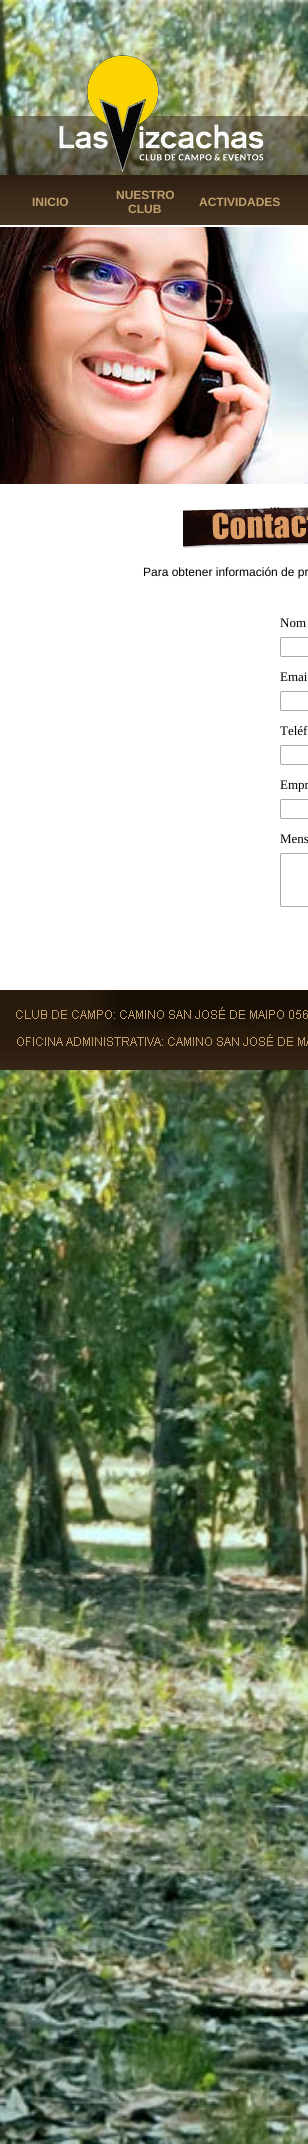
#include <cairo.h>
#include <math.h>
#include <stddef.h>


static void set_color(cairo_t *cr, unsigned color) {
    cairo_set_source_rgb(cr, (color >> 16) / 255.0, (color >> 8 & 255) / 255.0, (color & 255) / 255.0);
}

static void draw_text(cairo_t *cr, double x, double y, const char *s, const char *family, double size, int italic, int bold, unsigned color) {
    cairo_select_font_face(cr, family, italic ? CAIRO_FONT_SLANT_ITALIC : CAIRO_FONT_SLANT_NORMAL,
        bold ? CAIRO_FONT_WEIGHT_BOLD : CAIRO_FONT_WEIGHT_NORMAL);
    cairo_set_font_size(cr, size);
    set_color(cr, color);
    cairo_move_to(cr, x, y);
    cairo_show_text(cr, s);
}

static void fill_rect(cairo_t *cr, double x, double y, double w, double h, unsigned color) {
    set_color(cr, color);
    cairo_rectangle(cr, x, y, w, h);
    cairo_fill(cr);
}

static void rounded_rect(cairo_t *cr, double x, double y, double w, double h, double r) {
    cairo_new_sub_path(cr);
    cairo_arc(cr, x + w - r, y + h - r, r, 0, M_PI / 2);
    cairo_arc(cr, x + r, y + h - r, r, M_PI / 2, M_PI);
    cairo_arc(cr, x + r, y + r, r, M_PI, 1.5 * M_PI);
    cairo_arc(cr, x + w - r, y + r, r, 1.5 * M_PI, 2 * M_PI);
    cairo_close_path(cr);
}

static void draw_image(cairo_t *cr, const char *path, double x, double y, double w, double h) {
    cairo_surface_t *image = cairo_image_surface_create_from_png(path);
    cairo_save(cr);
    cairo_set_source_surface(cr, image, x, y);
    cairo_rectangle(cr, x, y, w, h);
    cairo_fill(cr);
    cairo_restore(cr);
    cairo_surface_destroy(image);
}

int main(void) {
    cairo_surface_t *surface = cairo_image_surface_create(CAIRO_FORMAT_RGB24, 308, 2144);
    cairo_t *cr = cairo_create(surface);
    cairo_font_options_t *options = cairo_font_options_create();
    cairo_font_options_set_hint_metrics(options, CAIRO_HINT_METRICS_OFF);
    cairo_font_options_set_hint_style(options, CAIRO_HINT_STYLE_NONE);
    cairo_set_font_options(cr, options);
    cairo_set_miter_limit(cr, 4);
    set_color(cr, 0xFFFFFF);
    cairo_paint(cr);
    draw_image(cr, "assets/img1.png", 0, 0, 308, 2144);
    draw_image(cr, "assets/img2.png", 0, 55, 308, 120);
    draw_image(cr, "assets/img3.png", 0, 175, 308, 50);
    draw_text(cr, 32, 206, "INICIO", "Liberation Sans", 12, 0, 1, 0xBF9F6D);
    draw_text(cr, 116, 199, "NUESTRO", "Liberation Sans", 12, 0, 1, 0xBF9F6D);
    draw_text(cr, 128, 213, "CLUB", "Liberation Sans", 12, 0, 1, 0xBF9F6D);
    draw_text(cr, 199, 206, "ACTIVIDADES", "Liberation Sans", 12, 0, 1, 0xBF9F6D);
    fill_rect(cr, 0, 225, 308, 765, 0xFFFFFF);
    draw_image(cr, "assets/img4.png", 0, 227, 308, 257);
    draw_image(cr, "assets/img5.png", 183, 507, 125, 42);
    draw_text(cr, 143, 576, "Para obtener información de pr", "Liberation Sans", 12, 0, 0, 0x000000);
    draw_text(cr, 280, 627, "Nom", "Liberation Serif", 13, 0, 0, 0x000000);
    rounded_rect(cr, 280.5, 637.5, 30, 19, 1.5);
    set_color(cr, 0xA9A9A9);
    cairo_set_line_width(cr, 1);
    cairo_stroke(cr);
    draw_text(cr, 280, 681, "Emai", "Liberation Serif", 13, 0, 0, 0x000000);
    rounded_rect(cr, 280.5, 691.5, 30, 19, 1.5);
    set_color(cr, 0xA9A9A9);
    cairo_stroke(cr);
    draw_text(cr, 280, 735, "Teléf", "Liberation Serif", 13, 0, 0, 0x000000);
    rounded_rect(cr, 280.5, 745.5, 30, 19, 1.5);
    set_color(cr, 0xA9A9A9);
    cairo_stroke(cr);
    draw_text(cr, 280, 789, "Empr", "Liberation Serif", 13, 0, 0, 0x000000);
    rounded_rect(cr, 280.5, 799.5, 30, 19, 1.5);
    set_color(cr, 0xA9A9A9);
    cairo_stroke(cr);
    draw_text(cr, 280, 843, "Mens", "Liberation Serif", 13, 0, 0, 0x000000);
    rounded_rect(cr, 280.5, 853.5, 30, 53, 1.5);
    set_color(cr, 0xA9A9A9);
    cairo_stroke(cr);
    draw_image(cr, "assets/img7.png", 0, 990, 308, 80);
    draw_image(cr, "assets/img6.png", 16, 1007, 292, 39);
    cairo_surface_write_to_png(surface, "output.png");
    cairo_font_options_destroy(options);
    cairo_destroy(cr);
    cairo_surface_destroy(surface);
    return 0;
}
